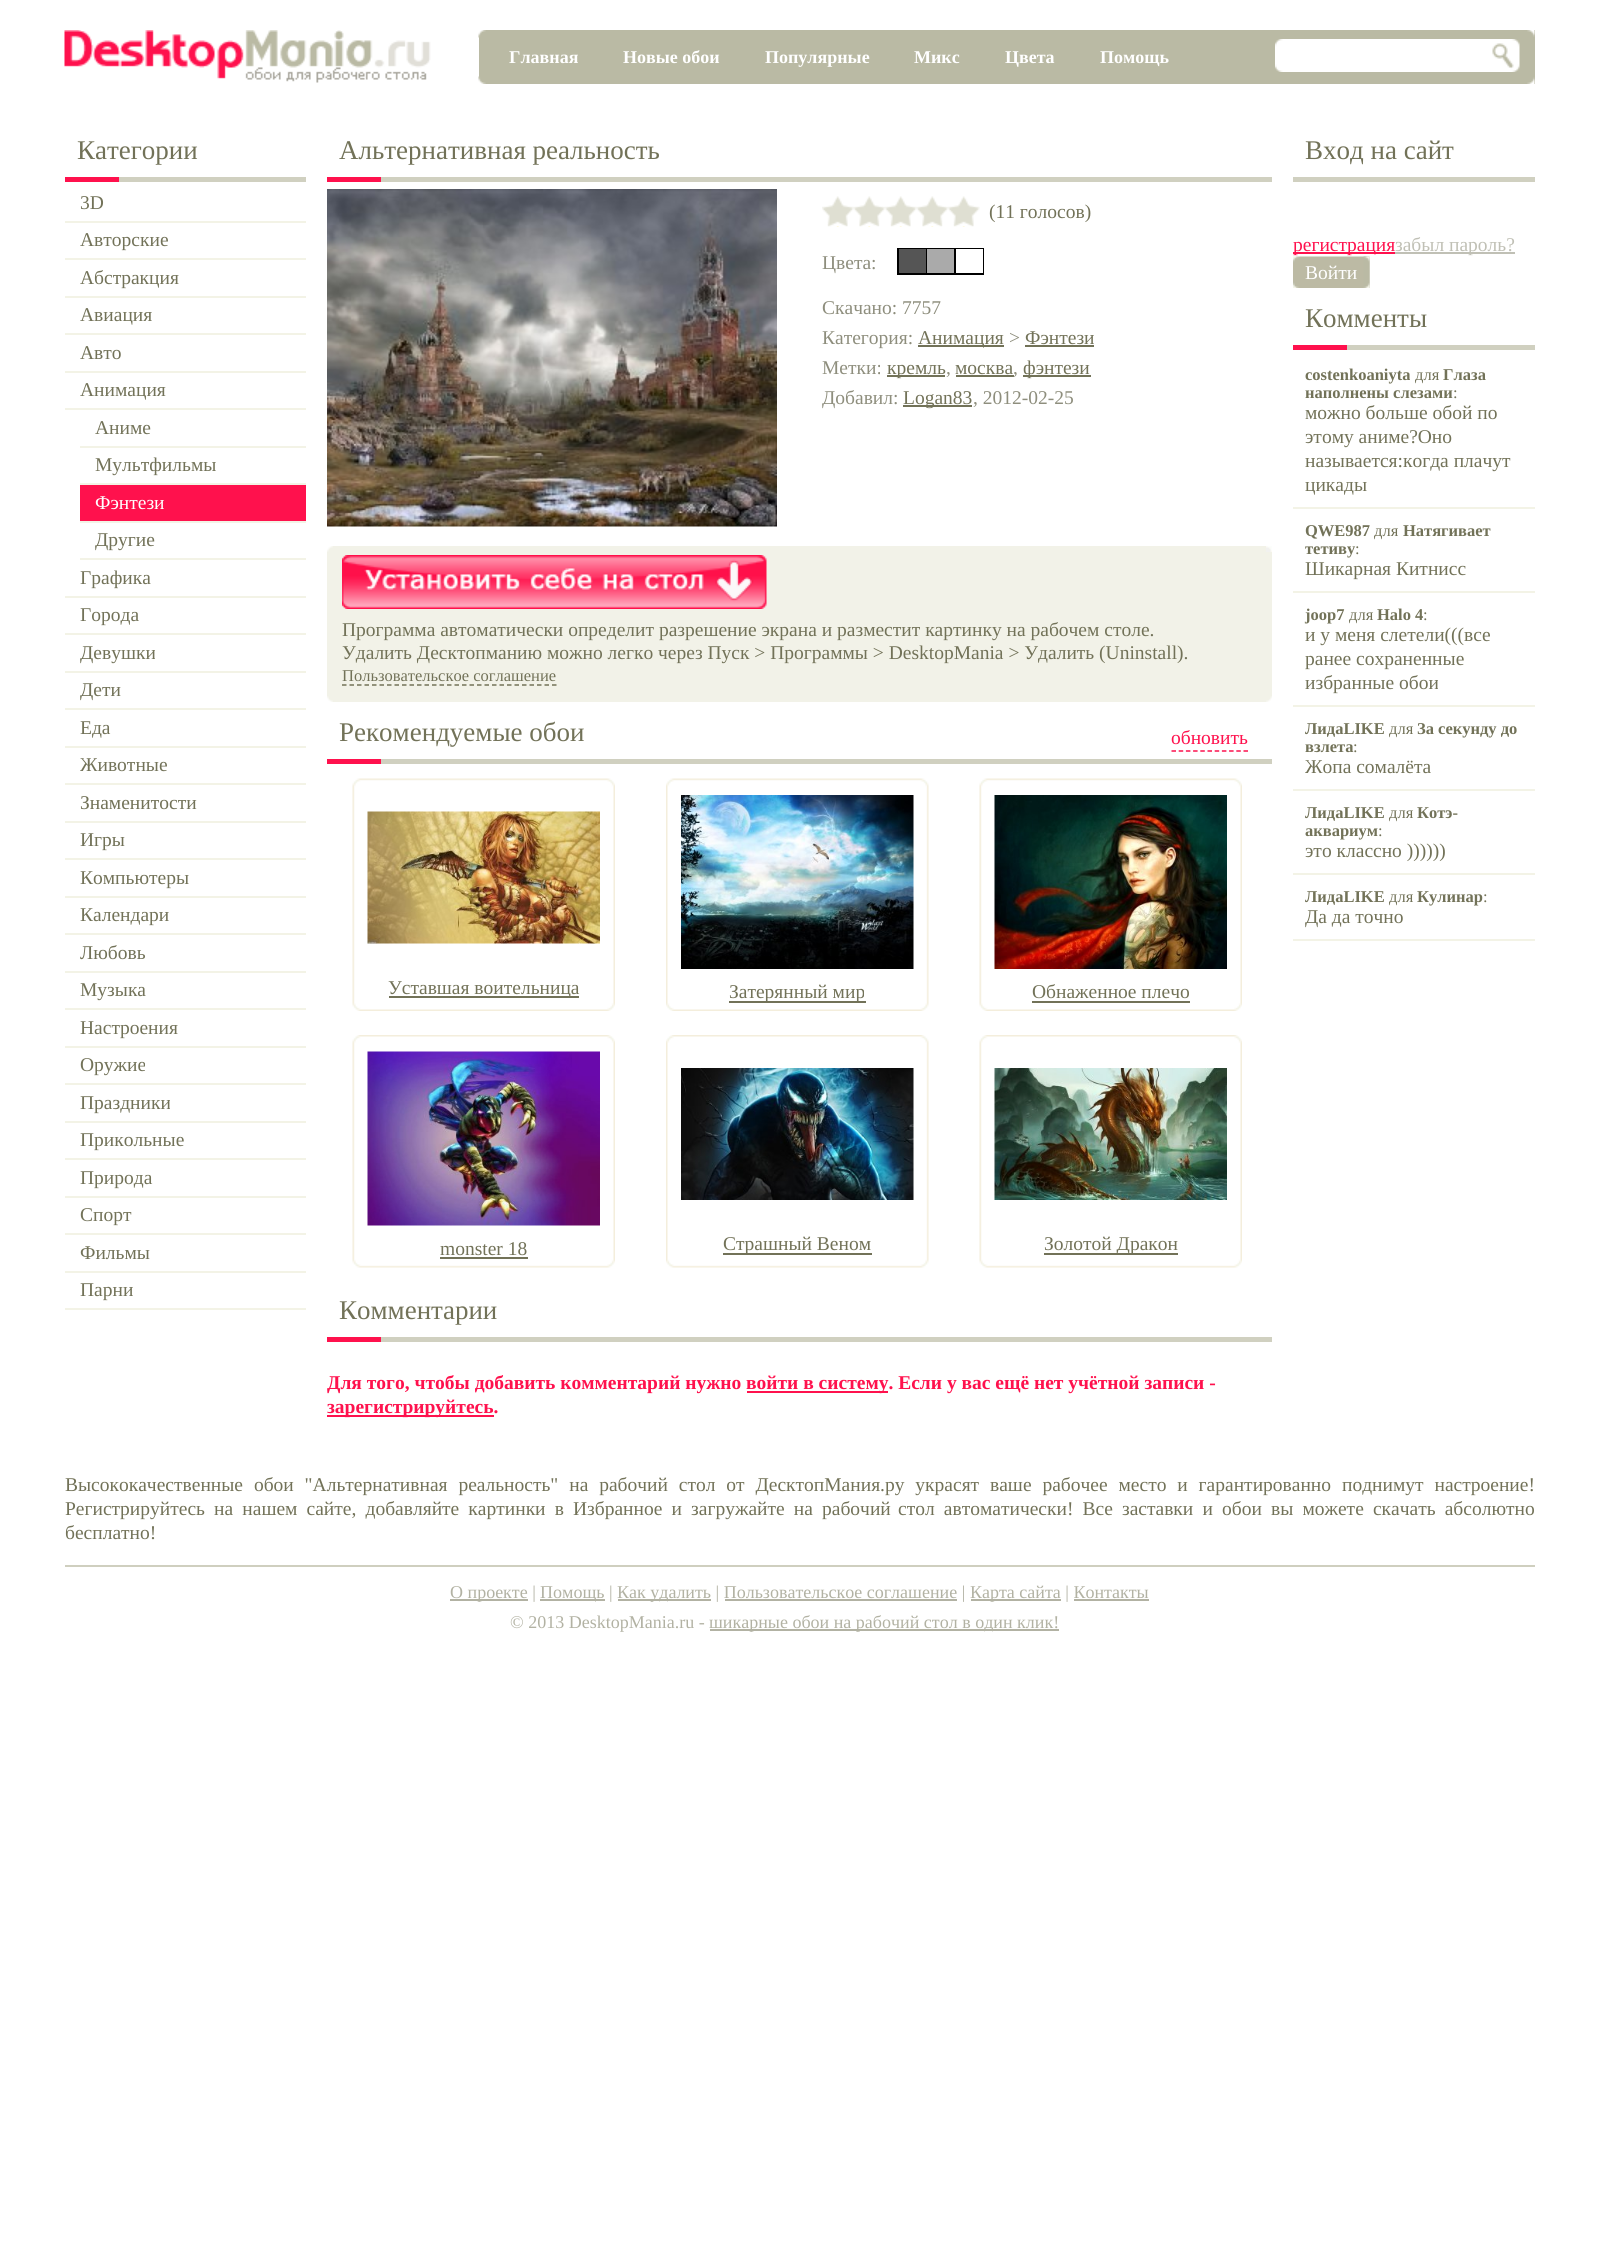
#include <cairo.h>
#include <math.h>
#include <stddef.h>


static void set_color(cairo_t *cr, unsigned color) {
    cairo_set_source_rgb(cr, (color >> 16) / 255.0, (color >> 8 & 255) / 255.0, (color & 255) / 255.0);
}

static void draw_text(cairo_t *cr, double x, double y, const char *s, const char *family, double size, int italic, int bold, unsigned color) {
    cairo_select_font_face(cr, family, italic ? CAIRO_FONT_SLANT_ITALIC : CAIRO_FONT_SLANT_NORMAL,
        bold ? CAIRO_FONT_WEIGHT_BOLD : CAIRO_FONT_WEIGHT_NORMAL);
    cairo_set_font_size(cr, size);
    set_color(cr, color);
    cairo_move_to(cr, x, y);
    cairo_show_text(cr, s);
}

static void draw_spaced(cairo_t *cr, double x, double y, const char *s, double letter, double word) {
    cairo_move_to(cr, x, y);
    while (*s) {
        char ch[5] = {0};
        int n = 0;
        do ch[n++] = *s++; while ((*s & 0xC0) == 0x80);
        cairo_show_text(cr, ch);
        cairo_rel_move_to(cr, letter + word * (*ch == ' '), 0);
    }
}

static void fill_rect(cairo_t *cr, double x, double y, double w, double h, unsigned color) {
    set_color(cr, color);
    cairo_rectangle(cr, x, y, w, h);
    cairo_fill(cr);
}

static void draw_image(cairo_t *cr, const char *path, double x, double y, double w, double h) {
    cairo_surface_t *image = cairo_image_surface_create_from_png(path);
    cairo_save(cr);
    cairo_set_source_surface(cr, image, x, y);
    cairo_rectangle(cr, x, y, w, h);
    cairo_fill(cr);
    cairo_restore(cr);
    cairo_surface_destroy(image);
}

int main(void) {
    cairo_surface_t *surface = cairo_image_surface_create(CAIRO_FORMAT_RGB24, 1599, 2244);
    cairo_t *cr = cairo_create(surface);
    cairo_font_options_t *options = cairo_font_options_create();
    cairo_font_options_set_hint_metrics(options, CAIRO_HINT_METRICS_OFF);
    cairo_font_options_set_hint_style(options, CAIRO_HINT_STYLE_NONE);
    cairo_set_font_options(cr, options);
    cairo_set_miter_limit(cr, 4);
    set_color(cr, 0xFFFFFF);
    cairo_paint(cr);
    draw_image(cr, "assets/img1.png", 64, 30, 367, 53);
    fill_rect(cr, 479, 30, 1056, 54, 0xBABAA4);
    draw_image(cr, "assets/img2.png", 478, 30, 8, 8);
    draw_image(cr, "assets/img3.png", 1527, 30, 8, 7);
    draw_text(cr, 509, 63, "Главная", "Liberation Serif", 18, 0, 1, 0xFFFFFF);
    draw_text(cr, 623, 63, "Новые обои", "Liberation Serif", 18, 0, 1, 0xFFFFFF);
    draw_text(cr, 765, 63, "Популярные", "Liberation Serif", 18, 0, 1, 0xFFFFFF);
    draw_text(cr, 914, 63, "Микс", "Liberation Serif", 18, 0, 1, 0xFFFFFF);
    draw_text(cr, 1005, 63, "Цвета", "Liberation Serif", 18, 0, 1, 0xFFFFFF);
    draw_text(cr, 1100, 63, "Помощь", "Liberation Serif", 18, 0, 1, 0xFFFFFF);
    draw_image(cr, "assets/img4.png", 1275, 39, 245, 33);
    fill_rect(cr, 1286, 47, 126, 17, 0xFFFFFF);
    draw_image(cr, "assets/img5.png", 478, 76, 8, 8);
    draw_image(cr, "assets/img6.png", 1527, 77, 8, 7);
    fill_rect(cr, 119, 177, 187, 5, 0xD0D0C0);
    draw_text(cr, 77, 159, "Категории", "Liberation Serif", 27, 0, 0, 0x727258);
    fill_rect(cr, 65, 177, 54, 5, 0xFF114D);
    fill_rect(cr, 65, 221, 241, 2, 0xF3F3E6);
    draw_text(cr, 80, 209, "3D", "Liberation Serif", 19.5, 0, 0, 0x727258);
    fill_rect(cr, 65, 258, 241, 2, 0xF3F3E6);
    draw_text(cr, 80, 246, "Авторские", "Liberation Serif", 19.5, 0, 0, 0x727258);
    fill_rect(cr, 65, 296, 241, 2, 0xF3F3E6);
    draw_text(cr, 80, 284, "Абстракция", "Liberation Serif", 19.5, 0, 0, 0x727258);
    fill_rect(cr, 65, 333, 241, 2, 0xF3F3E6);
    draw_text(cr, 80, 321, "Авиация", "Liberation Serif", 19.5, 0, 0, 0x727258);
    fill_rect(cr, 65, 371, 241, 2, 0xF3F3E6);
    draw_text(cr, 80, 359, "Авто", "Liberation Serif", 19.5, 0, 0, 0x727258);
    fill_rect(cr, 65, 408, 241, 2, 0xF3F3E6);
    draw_text(cr, 80, 396, "Анимация", "Liberation Serif", 19.5, 0, 0, 0x727258);
    fill_rect(cr, 80, 446, 226, 2, 0xF3F3E6);
    draw_text(cr, 95, 434, "Аниме", "Liberation Serif", 19.5, 0, 0, 0x727258);
    fill_rect(cr, 80, 483, 226, 2, 0xF3F3E6);
    draw_text(cr, 95, 471, "Мультфильмы", "Liberation Serif", 19.5, 0, 0, 0x727258);
    fill_rect(cr, 80, 485, 226, 36, 0xFF114D);
    fill_rect(cr, 80, 521, 226, 2, 0xF3F3E6);
    draw_text(cr, 95, 509, "Фэнтези", "Liberation Serif", 19.5, 0, 0, 0xFFFFFF);
    fill_rect(cr, 80, 558, 226, 2, 0xF3F3E6);
    draw_text(cr, 95, 546, "Другие", "Liberation Serif", 19.5, 0, 0, 0x727258);
    fill_rect(cr, 65, 596, 241, 2, 0xF3F3E6);
    draw_text(cr, 80, 584, "Графика", "Liberation Serif", 19.5, 0, 0, 0x727258);
    fill_rect(cr, 65, 633, 241, 2, 0xF3F3E6);
    draw_text(cr, 80, 621, "Города", "Liberation Serif", 19.5, 0, 0, 0x727258);
    fill_rect(cr, 65, 671, 241, 2, 0xF3F3E6);
    draw_text(cr, 80, 659, "Девушки", "Liberation Serif", 19.5, 0, 0, 0x727258);
    fill_rect(cr, 65, 708, 241, 2, 0xF3F3E6);
    draw_text(cr, 80, 696, "Дети", "Liberation Serif", 19.5, 0, 0, 0x727258);
    fill_rect(cr, 65, 746, 241, 2, 0xF3F3E6);
    draw_text(cr, 80, 734, "Еда", "Liberation Serif", 19.5, 0, 0, 0x727258);
    fill_rect(cr, 65, 783, 241, 2, 0xF3F3E6);
    draw_text(cr, 80, 771, "Животные", "Liberation Serif", 19.5, 0, 0, 0x727258);
    fill_rect(cr, 65, 821, 241, 2, 0xF3F3E6);
    draw_text(cr, 80, 809, "Знаменитости", "Liberation Serif", 19.5, 0, 0, 0x727258);
    fill_rect(cr, 65, 858, 241, 2, 0xF3F3E6);
    draw_text(cr, 80, 846, "Игры", "Liberation Serif", 19.5, 0, 0, 0x727258);
    fill_rect(cr, 65, 896, 241, 2, 0xF3F3E6);
    draw_text(cr, 80, 884, "Компьютеры", "Liberation Serif", 19.5, 0, 0, 0x727258);
    fill_rect(cr, 65, 933, 241, 2, 0xF3F3E6);
    draw_text(cr, 80, 921, "Календари", "Liberation Serif", 19.5, 0, 0, 0x727258);
    fill_rect(cr, 65, 971, 241, 2, 0xF3F3E6);
    draw_text(cr, 80, 959, "Любовь", "Liberation Serif", 19.5, 0, 0, 0x727258);
    fill_rect(cr, 65, 1008, 241, 2, 0xF3F3E6);
    draw_text(cr, 80, 996, "Музыка", "Liberation Serif", 19.5, 0, 0, 0x727258);
    fill_rect(cr, 65, 1046, 241, 2, 0xF3F3E6);
    draw_text(cr, 80, 1034, "Настроения", "Liberation Serif", 19.5, 0, 0, 0x727258);
    fill_rect(cr, 65, 1083, 241, 2, 0xF3F3E6);
    draw_text(cr, 80, 1071, "Оружие", "Liberation Serif", 19.5, 0, 0, 0x727258);
    fill_rect(cr, 65, 1121, 241, 2, 0xF3F3E6);
    draw_text(cr, 80, 1109, "Праздники", "Liberation Serif", 19.5, 0, 0, 0x727258);
    fill_rect(cr, 65, 1158, 241, 2, 0xF3F3E6);
    draw_text(cr, 80, 1146, "Прикольные", "Liberation Serif", 19.5, 0, 0, 0x727258);
    fill_rect(cr, 65, 1196, 241, 2, 0xF3F3E6);
    draw_text(cr, 80, 1184, "Природа", "Liberation Serif", 19.5, 0, 0, 0x727258);
    fill_rect(cr, 65, 1233, 241, 2, 0xF3F3E6);
    draw_text(cr, 80, 1221, "Спорт", "Liberation Serif", 19.5, 0, 0, 0x727258);
    fill_rect(cr, 65, 1271, 241, 2, 0xF3F3E6);
    draw_text(cr, 80, 1259, "Фильмы", "Liberation Serif", 19.5, 0, 0, 0x727258);
    fill_rect(cr, 65, 1308, 241, 2, 0xF3F3E6);
    draw_text(cr, 80, 1296, "Парни", "Liberation Serif", 19.5, 0, 0, 0x727258);
    fill_rect(cr, 381, 177, 891, 5, 0xD0D0C0);
    draw_text(cr, 339, 159, "Альтернативная реальность", "Liberation Serif", 27, 0, 0, 0x727258);
    fill_rect(cr, 327, 177, 54, 5, 0xFF114D);
    draw_image(cr, "assets/img7.png", 327, 189, 450, 338);
    draw_image(cr, "assets/img8.png", 822, 196, 158, 31);
    draw_text(cr, 989, 218, "(11 голосов)", "Liberation Serif", 19.5, 0, 0, 0x727258);
    draw_text(cr, 822, 269, "Цвета:", "Liberation Serif", 19.5, 0, 0, 0x8E8E7D);
    fill_rect(cr, 897, 248, 87, 27, 0x000000);
    fill_rect(cr, 899, 249, 27, 24, 0x555555);
    fill_rect(cr, 927, 249, 27, 24, 0xAAAAAA);
    fill_rect(cr, 956, 249, 27, 24, 0xFFFFFF);
    draw_text(cr, 822, 314, "Скачано: 7757", "Liberation Serif", 19.5, 0, 0, 0x8E8E7D);
    draw_text(cr, 822, 344, "Категория:", "Liberation Serif", 19.5, 0, 0, 0x8E8E7D);
    fill_rect(cr, 918, 345, 86, 2, 0x727258);
    draw_text(cr, 918, 344, "Анимация", "Liberation Serif", 19.5, 0, 0, 0x727258);
    draw_text(cr, 1009, 344, ">", "Liberation Serif", 19.5, 0, 0, 0x8E8E7D);
    draw_text(cr, 1025, 344, "Фэнтези", "Liberation Serif", 19.5, 0, 0, 0x727258);
    fill_rect(cr, 1025, 345, 69, 2, 0x727258);
    draw_text(cr, 822, 374, "Метки:", "Liberation Serif", 19.5, 0, 0, 0x8E8E7D);
    fill_rect(cr, 887, 375, 58, 2, 0x727258);
    draw_text(cr, 887, 374, "кремль", "Liberation Serif", 19.5, 0, 0, 0x727258);
    draw_text(cr, 946, 374, ",", "Liberation Serif", 19.5, 0, 0, 0x8E8E7D);
    draw_text(cr, 955, 374, "москва", "Liberation Serif", 19.5, 0, 0, 0x727258);
    fill_rect(cr, 956, 375, 58, 2, 0x727258);
    draw_text(cr, 1013, 374, ",", "Liberation Serif", 19.5, 0, 0, 0x8E8E7D);
    fill_rect(cr, 1023, 375, 68, 2, 0x727258);
    draw_text(cr, 1023, 374, "фэнтези", "Liberation Serif", 19.5, 0, 0, 0x727258);
    draw_text(cr, 822, 404, "Добавил:", "Liberation Serif", 19.5, 0, 0, 0x8E8E7D);
    fill_rect(cr, 903, 405, 69, 2, 0x727258);
    draw_text(cr, 903, 404, "Logan83", "Liberation Serif", 19.5, 0, 0, 0x727258);
    draw_text(cr, 973, 404, ", 2012-02-25", "Liberation Serif", 19.5, 0, 0, 0x8E8E7D);
    fill_rect(cr, 327, 546, 945, 156, 0xF2F2E8);
    draw_image(cr, "assets/img9.png", 327, 546, 6, 6);
    draw_image(cr, "assets/img10.png", 1266, 546, 6, 6);
    draw_image(cr, "assets/img11.png", 342, 555, 425, 54);
    draw_text(cr, 342, 636, "Программа автоматически определит разрешение экрана и разместит картинку на рабочем столе.", "Liberation Serif", 19.5, 0, 0, 0x727258);
    draw_text(cr, 342, 659, "Удалить Десктопманию можно легко через Пуск > Программы > DesktopMania > Удалить (Uninstall).", "Liberation Serif", 19.5, 0, 0, 0x727258);
    draw_text(cr, 342, 681, "Пользовательское соглашение", "Liberation Serif", 16.5, 0, 0, 0x727258);
    cairo_new_path(cr);
    cairo_move_to(cr, 342, 685);
    cairo_line_to(cr, 556.5, 685);
    cairo_set_line_width(cr, 1.5);
    cairo_set_dash(cr, (double[]){4.5, 3}, 2, 0);
    cairo_stroke(cr);
    draw_image(cr, "assets/img12.png", 327, 696, 6, 6);
    draw_image(cr, "assets/img13.png", 1266, 696, 6, 6);
    fill_rect(cr, 381, 759, 891, 5, 0xD0D0C0);
    draw_text(cr, 339, 741, "Рекомендуемые обои", "Liberation Serif", 27, 0, 0, 0x727258);
    cairo_new_path(cr);
    cairo_move_to(cr, 1171.5, 751);
    cairo_line_to(cr, 1248, 751);
    set_color(cr, 0xFB114D);
    cairo_set_dash(cr, (double[]){4.5, 2.7}, 2, 0);
    cairo_stroke(cr);
    draw_text(cr, 1171, 744, "обновить", "Liberation Serif", 19.5, 0, 0, 0xFF114D);
    fill_rect(cr, 327, 759, 54, 5, 0xFF114D);
    draw_image(cr, "assets/img14.png", 352, 778, 263, 233);
    draw_image(cr, "assets/img15.png", 367, 811, 233, 133);
    fill_rect(cr, 389, 996, 190, 2, 0x727258);
    draw_text(cr, 388, 994, "Уставшая воительница", "Liberation Serif", 19.5, 0, 0, 0x727258);
    draw_image(cr, "assets/img16.png", 666, 778, 263, 233);
    draw_image(cr, "assets/img17.png", 681, 795, 233, 174);
    fill_rect(cr, 729, 1001, 137, 2, 0x727258);
    draw_text(cr, 729, 998, "Затерянный мир", "Liberation Serif", 19.5, 0, 0, 0x727258);
    draw_image(cr, "assets/img18.png", 979, 778, 263, 233);
    draw_image(cr, "assets/img19.png", 994, 795, 233, 174);
    draw_text(cr, 1032, 998, "Обнаженное плечо", "Liberation Serif", 19.5, 0, 0, 0x727258);
    fill_rect(cr, 1032, 1001, 158, 2, 0x727258);
    draw_image(cr, "assets/img20.png", 352, 1035, 263, 233);
    draw_image(cr, "assets/img21.png", 367, 1051, 233, 175);
    draw_text(cr, 440, 1255, "monster 18", "Liberation Serif", 19.5, 0, 0, 0x727258);
    fill_rect(cr, 440, 1257, 88, 2, 0x727258);
    draw_image(cr, "assets/img22.png", 666, 1035, 263, 233);
    draw_image(cr, "assets/img23.png", 681, 1068, 233, 132);
    fill_rect(cr, 723, 1253, 149, 2, 0x727258);
    draw_text(cr, 723, 1250, "Страшный Веном", "Liberation Serif", 19.5, 0, 0, 0x727258);
    draw_image(cr, "assets/img24.png", 979, 1035, 263, 233);
    draw_image(cr, "assets/img25.png", 994, 1068, 233, 132);
    fill_rect(cr, 1044, 1253, 134, 2, 0x727258);
    draw_text(cr, 1044, 1250, "Золотой Дракон", "Liberation Serif", 19.5, 0, 0, 0x727258);
    fill_rect(cr, 381, 1337, 891, 5, 0xD0D0C0);
    draw_text(cr, 339, 1319, "Комментарии", "Liberation Serif", 27, 0, 0, 0x727258);
    fill_rect(cr, 327, 1337, 54, 5, 0xFF114D);
    draw_text(cr, 327, 1389, "Для того, чтобы добавить комментарий нужно", "Liberation Serif", 19.5, 0, 1, 0xFF114D);
    fill_rect(cr, 747, 1391, 141, 2, 0xFF114D);
    draw_text(cr, 746, 1389, "войти в систему. Если у вас ещё нет учётной записи -", "Liberation Serif", 19.5, 0, 1, 0xFF114D);
    fill_rect(cr, 327, 1415, 167, 2, 0xFF114D);
    draw_text(cr, 327, 1413, "зарегистрируйтесь.", "Liberation Serif", 19.5, 0, 1, 0xFF114D);
    fill_rect(cr, 1293, 177, 242, 5, 0xD0D0C0);
    draw_text(cr, 1305, 159, "Вход на сайт", "Liberation Serif", 27, 0, 0, 0x727258);
    fill_rect(cr, 1293, 252, 102, 2, 0xFF114D);
    draw_text(cr, 1293, 251, "регистрация", "Liberation Serif", 19.5, 0, 0, 0xFF114D);
    fill_rect(cr, 1395, 252, 120, 2, 0xC0C0B5);
    draw_text(cr, 1395, 251, "забыл пароль?", "Liberation Serif", 19.5, 0, 0, 0xC0C0B5);
    draw_image(cr, "assets/img26.png", 1293, 256, 77, 32);
    draw_image(cr, "assets/img27.png", 1363, 256, 7, 32);
    draw_text(cr, 1305, 279, "Войти", "Liberation Serif", 19.5, 0, 0, 0xFFFFFF);
    fill_rect(cr, 1347, 345, 188, 5, 0xD0D0C0);
    draw_text(cr, 1305, 327, "Комменты", "Liberation Serif", 27, 0, 0, 0x727258);
    fill_rect(cr, 1293, 345, 54, 5, 0xFF114D);
    fill_rect(cr, 1293, 507, 242, 2, 0xF3F3E6);
    draw_text(cr, 1305, 380, "costenkoaniyta", "Liberation Serif", 16.5, 0, 1, 0x727258);
    draw_text(cr, 1415, 380, "для", "Liberation Serif", 16.5, 0, 0, 0x727258);
    draw_text(cr, 1443, 380, "Глаза", "Liberation Serif", 16.5, 0, 1, 0x727258);
    draw_text(cr, 1305, 398, "наполнены слезами", "Liberation Serif", 16.5, 0, 1, 0x727258);
    draw_text(cr, 1453, 398, ":", "Liberation Serif", 16.5, 0, 0, 0x727258);
    draw_text(cr, 1305, 419, "можно больше обой по", "Liberation Serif", 19.5, 0, 0, 0x727258);
    draw_text(cr, 1305, 443, "этому аниме?Оно", "Liberation Serif", 19.5, 0, 0, 0x727258);
    draw_text(cr, 1305, 467, "называется:когда плачут", "Liberation Serif", 19.5, 0, 0, 0x727258);
    draw_text(cr, 1305, 491, "цикады", "Liberation Serif", 19.5, 0, 0, 0x727258);
    fill_rect(cr, 1293, 591, 242, 2, 0xF3F3E6);
    draw_text(cr, 1305, 536, "QWE987", "Liberation Serif", 16.5, 0, 1, 0x727258);
    draw_text(cr, 1374, 536, "для", "Liberation Serif", 16.5, 0, 0, 0x727258);
    draw_text(cr, 1403, 536, "Натягивает", "Liberation Serif", 16.5, 0, 1, 0x727258);
    draw_text(cr, 1305, 554, "тетиву", "Liberation Serif", 16.5, 0, 1, 0x727258);
    draw_text(cr, 1355, 554, ":", "Liberation Serif", 16.5, 0, 0, 0x727258);
    draw_text(cr, 1305, 575, "Шикарная Китнисс", "Liberation Serif", 19.5, 0, 0, 0x727258);
    fill_rect(cr, 1293, 705, 242, 2, 0xF3F3E6);
    draw_text(cr, 1305, 620, "joop7", "Liberation Serif", 16.5, 0, 1, 0x727258);
    draw_text(cr, 1349, 620, "для", "Liberation Serif", 16.5, 0, 0, 0x727258);
    draw_text(cr, 1377, 620, "Halo 4", "Liberation Serif", 16.5, 0, 1, 0x727258);
    draw_text(cr, 1423, 620, ":", "Liberation Serif", 16.5, 0, 0, 0x727258);
    draw_text(cr, 1305, 641, "и у меня слетели(((все", "Liberation Serif", 19.5, 0, 0, 0x727258);
    draw_text(cr, 1305, 665, "ранее сохраненные", "Liberation Serif", 19.5, 0, 0, 0x727258);
    draw_text(cr, 1305, 689, "избранные обои", "Liberation Serif", 19.5, 0, 0, 0x727258);
    fill_rect(cr, 1293, 789, 242, 2, 0xF3F3E6);
    draw_text(cr, 1305, 734, "ЛидаLIKE", "Liberation Serif", 16.5, 0, 1, 0x727258);
    draw_text(cr, 1389, 734, "для", "Liberation Serif", 16.5, 0, 0, 0x727258);
    draw_text(cr, 1417, 734, "За секунду до", "Liberation Serif", 16.5, 0, 1, 0x727258);
    draw_text(cr, 1305, 752, "взлета", "Liberation Serif", 16.5, 0, 1, 0x727258);
    draw_text(cr, 1353, 752, ":", "Liberation Serif", 16.5, 0, 0, 0x727258);
    draw_text(cr, 1305, 773, "Жопа сомалёта", "Liberation Serif", 19.5, 0, 0, 0x727258);
    fill_rect(cr, 1293, 873, 242, 2, 0xF3F3E6);
    draw_text(cr, 1305, 818, "ЛидаLIKE", "Liberation Serif", 16.5, 0, 1, 0x727258);
    draw_text(cr, 1389, 818, "для", "Liberation Serif", 16.5, 0, 0, 0x727258);
    draw_text(cr, 1417, 818, "Котэ-", "Liberation Serif", 16.5, 0, 1, 0x727258);
    draw_text(cr, 1305, 836, "аквариум", "Liberation Serif", 16.5, 0, 1, 0x727258);
    draw_text(cr, 1378, 836, ":", "Liberation Serif", 16.5, 0, 0, 0x727258);
    draw_text(cr, 1305, 857, "это классно ))))))", "Liberation Serif", 19.5, 0, 0, 0x727258);
    fill_rect(cr, 1293, 939, 242, 2, 0xF3F3E6);
    draw_text(cr, 1305, 902, "ЛидаLIKE", "Liberation Serif", 16.5, 0, 1, 0x727258);
    draw_text(cr, 1389, 902, "для", "Liberation Serif", 16.5, 0, 0, 0x727258);
    draw_text(cr, 1417, 902, "Кулинар", "Liberation Serif", 16.5, 0, 1, 0x727258);
    draw_text(cr, 1483, 902, ":", "Liberation Serif", 16.5, 0, 0, 0x727258);
    draw_text(cr, 1305, 923, "Да да точно", "Liberation Serif", 19.5, 0, 0, 0x727258);
    draw_spaced(cr, 65, 1491, "Высококачественные обои \"Альтернативная реальность\" на рабочий стол от ДесктопМания.ру украсят ваше рабочее место и гарантированно", 0, 6);
    draw_spaced(cr, 1342, 1491, "поднимут настроение!", 0, 6);
    draw_spaced(cr, 65, 1515, "Регистрируйтесь на нашем сайте, добавляйте картинки в Избранное и загружайте на рабочий", 0, 4.25);
    draw_spaced(cr, 898, 1515, "стол автоматически! Все заставки и обои вы можете скачать абсолютно", 0, 4.25);
    draw_text(cr, 65, 1539, "бесплатно!", "Liberation Serif", 19.5, 0, 0, 0x727258);
    fill_rect(cr, 65, 1565, 1470, 2, 0xCFCFBF);
    fill_rect(cr, 450, 1599, 78, 2, 0xB2B2A3);
    draw_text(cr, 450, 1598, "О проекте |", "Liberation Serif", 18, 0, 0, 0xB2B2A3);
    fill_rect(cr, 540, 1599, 65, 2, 0xB2B2A3);
    draw_text(cr, 540, 1598, "Помощь |", "Liberation Serif", 18, 0, 0, 0xB2B2A3);
    fill_rect(cr, 618, 1599, 93, 2, 0xB2B2A3);
    draw_text(cr, 617, 1598, "Как удалить | Пользовательское соглашение |", "Liberation Serif", 18, 0, 0, 0xB2B2A3);
    fill_rect(cr, 971, 1599, 90, 2, 0xB2B2A3);
    draw_text(cr, 970, 1598, "Карта сайта | Контакты", "Liberation Serif", 18, 0, 0, 0xB2B2A3);
    fill_rect(cr, 725, 1599, 232, 2, 0xB2B2A3);
    fill_rect(cr, 1074, 1599, 75, 2, 0xB2B2A3);
    draw_text(cr, 510, 1628, "© 2013 DesktopMania.ru -", "Liberation Serif", 18, 0, 0, 0xB2B2A3);
    fill_rect(cr, 710, 1629, 349, 2, 0xB2B2A3);
    draw_text(cr, 709, 1628, "шикарные обои на рабочий стол в один клик!", "Liberation Serif", 18, 0, 0, 0xB2B2A3);
    cairo_surface_write_to_png(surface, "output.png");
    cairo_font_options_destroy(options);
    cairo_destroy(cr);
    cairo_surface_destroy(surface);
    return 0;
}
